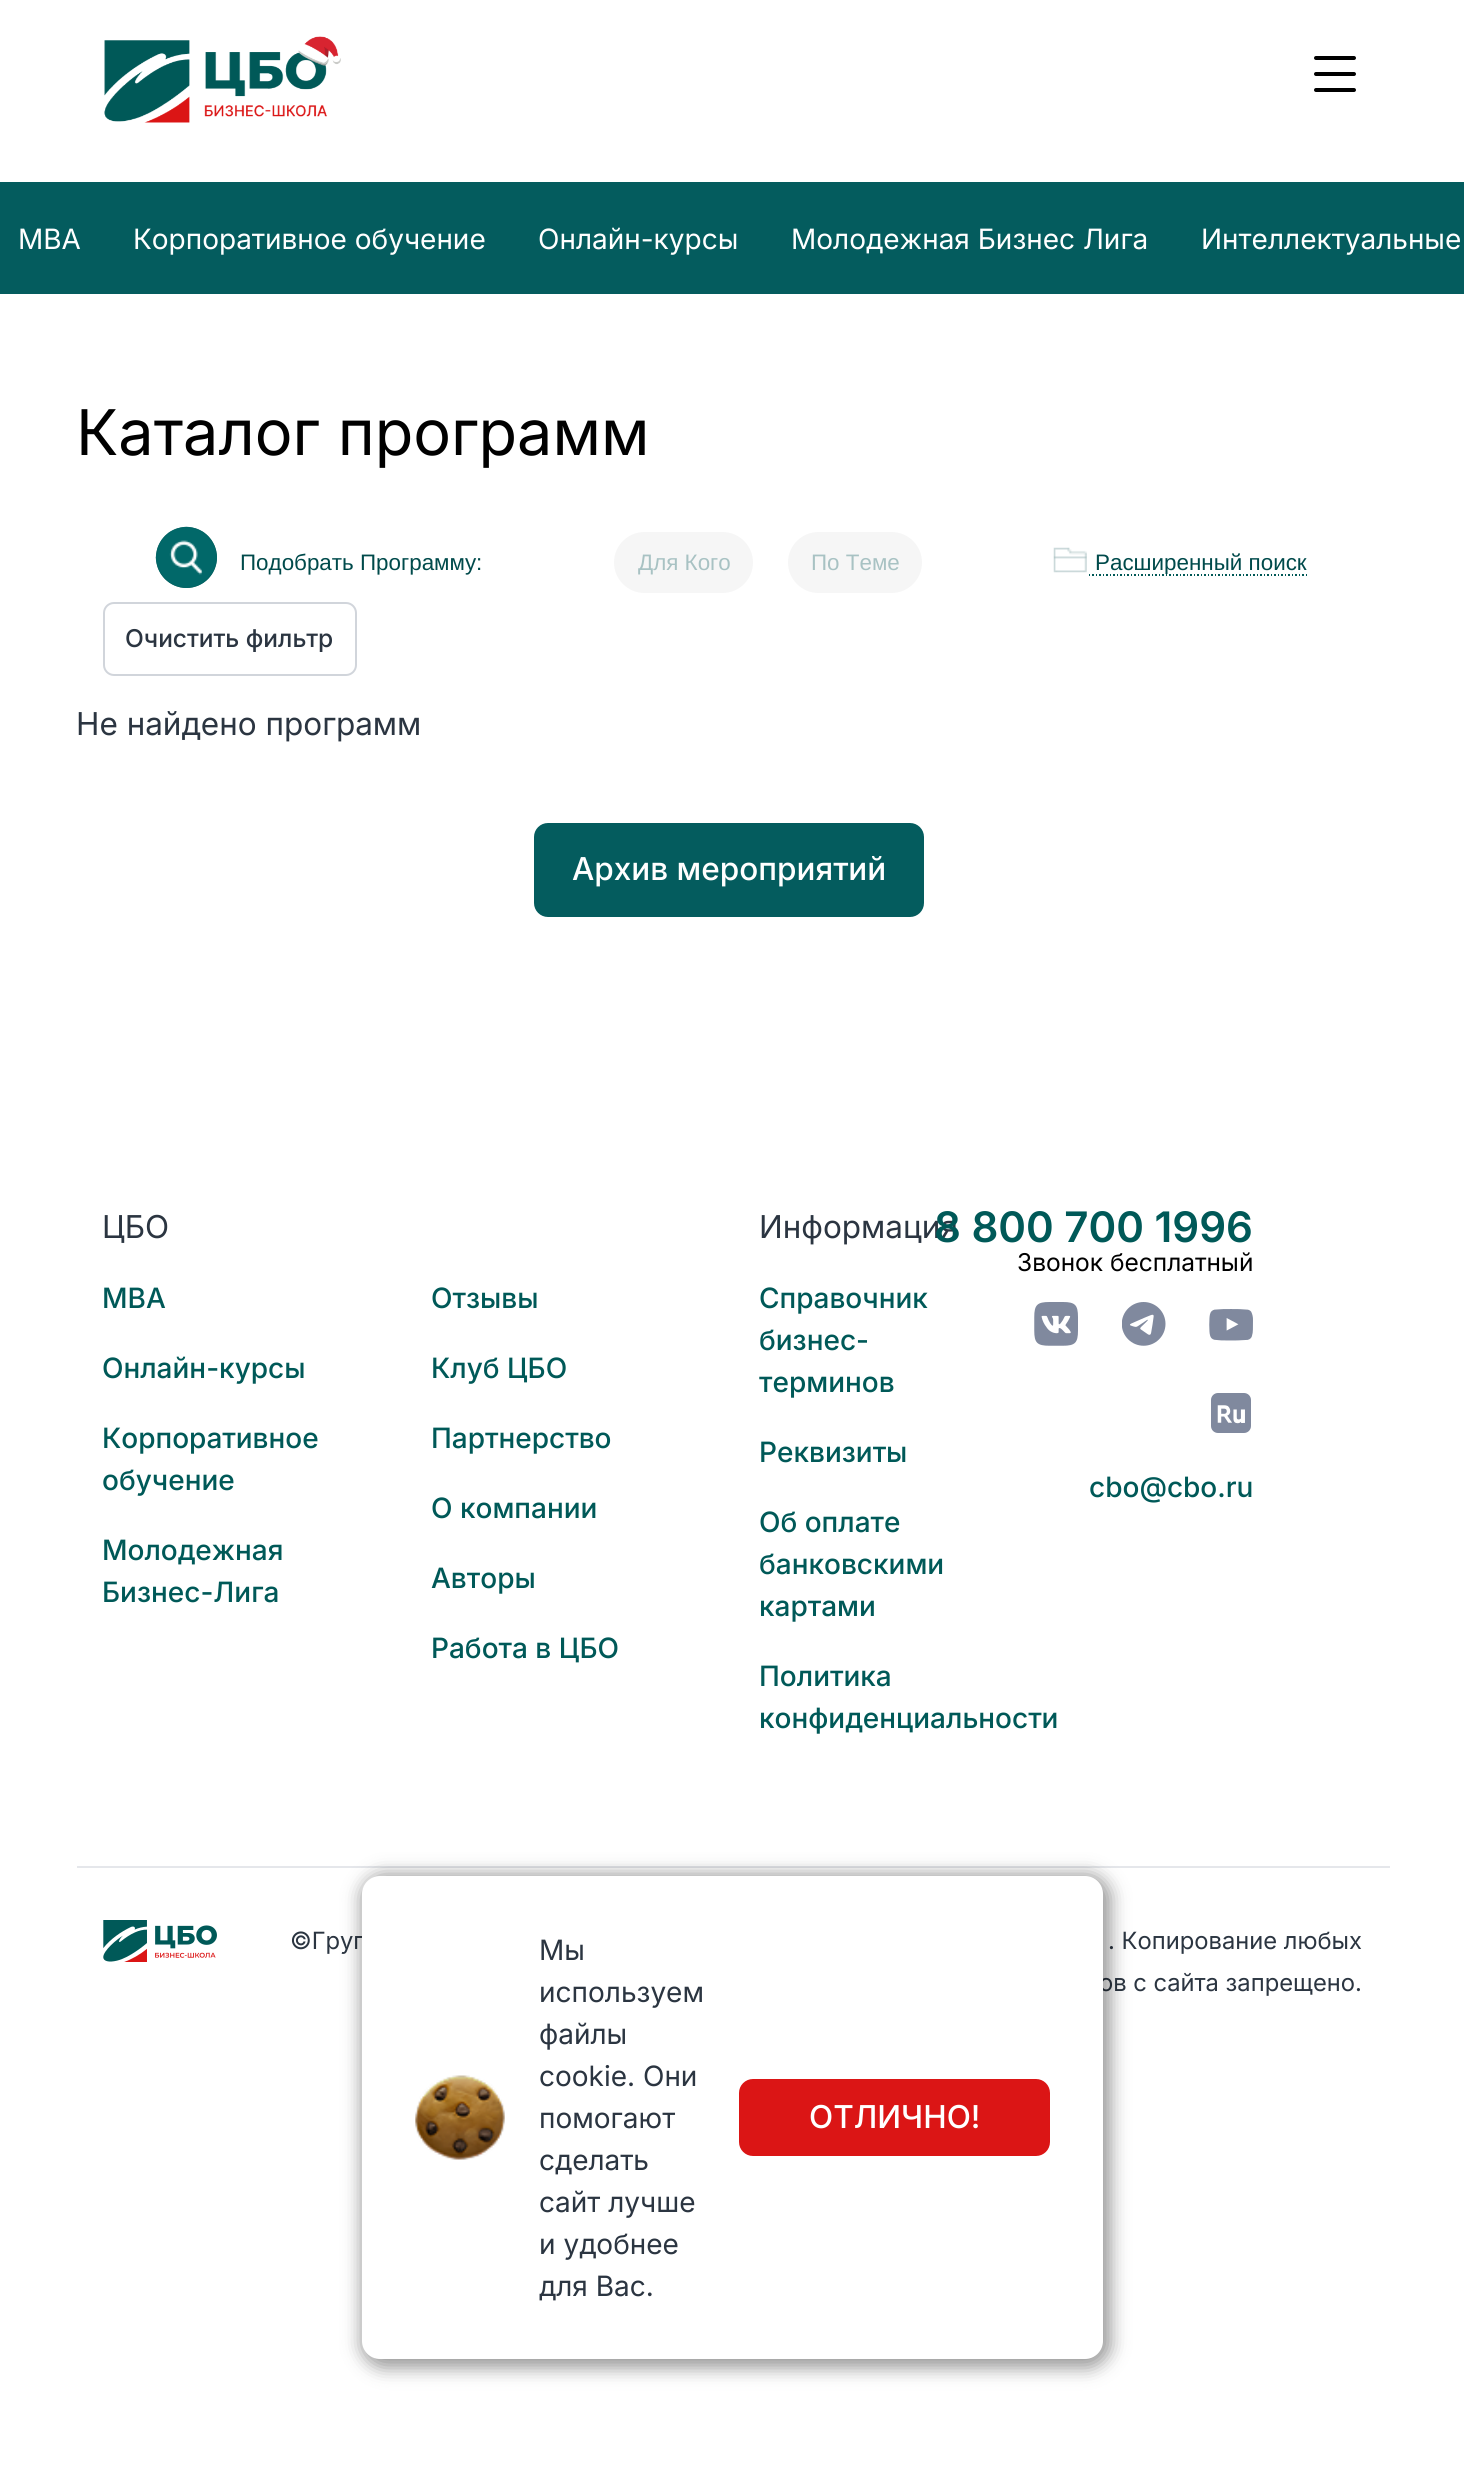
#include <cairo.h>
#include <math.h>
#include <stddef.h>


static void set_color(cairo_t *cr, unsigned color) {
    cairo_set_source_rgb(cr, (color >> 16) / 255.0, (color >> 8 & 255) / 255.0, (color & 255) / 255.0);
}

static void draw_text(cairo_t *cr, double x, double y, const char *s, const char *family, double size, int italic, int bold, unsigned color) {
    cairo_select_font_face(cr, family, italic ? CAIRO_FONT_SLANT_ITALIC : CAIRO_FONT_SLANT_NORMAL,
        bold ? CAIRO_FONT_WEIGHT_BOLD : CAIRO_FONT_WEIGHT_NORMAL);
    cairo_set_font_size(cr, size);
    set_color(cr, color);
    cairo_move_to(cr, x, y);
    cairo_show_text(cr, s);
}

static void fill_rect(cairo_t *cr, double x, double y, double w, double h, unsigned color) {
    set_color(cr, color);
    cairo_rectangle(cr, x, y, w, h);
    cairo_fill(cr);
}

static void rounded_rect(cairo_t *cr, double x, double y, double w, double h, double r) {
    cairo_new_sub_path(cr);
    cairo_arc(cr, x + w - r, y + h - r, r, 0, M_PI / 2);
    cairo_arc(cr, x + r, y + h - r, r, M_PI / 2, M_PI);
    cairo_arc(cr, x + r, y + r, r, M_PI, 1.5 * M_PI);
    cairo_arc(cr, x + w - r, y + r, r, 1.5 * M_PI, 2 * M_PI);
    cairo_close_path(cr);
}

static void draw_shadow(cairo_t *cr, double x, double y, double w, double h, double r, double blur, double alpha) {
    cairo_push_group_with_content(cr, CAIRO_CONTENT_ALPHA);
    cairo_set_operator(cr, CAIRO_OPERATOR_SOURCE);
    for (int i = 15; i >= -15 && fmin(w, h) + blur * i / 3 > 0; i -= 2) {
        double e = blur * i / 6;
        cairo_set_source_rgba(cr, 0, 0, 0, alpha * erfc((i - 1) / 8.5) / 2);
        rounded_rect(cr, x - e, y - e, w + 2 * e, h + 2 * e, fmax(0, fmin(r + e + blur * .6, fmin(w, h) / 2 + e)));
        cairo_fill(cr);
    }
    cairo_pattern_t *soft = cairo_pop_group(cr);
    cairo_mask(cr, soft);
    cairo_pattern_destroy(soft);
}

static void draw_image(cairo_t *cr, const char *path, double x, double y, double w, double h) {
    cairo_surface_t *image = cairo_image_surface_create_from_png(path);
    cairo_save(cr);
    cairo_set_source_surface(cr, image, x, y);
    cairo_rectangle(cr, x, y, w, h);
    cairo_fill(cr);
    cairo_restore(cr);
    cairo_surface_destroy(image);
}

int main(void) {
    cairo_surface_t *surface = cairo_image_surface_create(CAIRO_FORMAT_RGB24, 1464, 2483);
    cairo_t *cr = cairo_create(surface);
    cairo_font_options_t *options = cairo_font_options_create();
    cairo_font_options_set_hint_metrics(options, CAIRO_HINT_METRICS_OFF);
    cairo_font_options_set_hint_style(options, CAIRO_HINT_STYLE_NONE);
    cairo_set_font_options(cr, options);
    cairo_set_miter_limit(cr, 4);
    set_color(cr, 0xFFFFFF);
    cairo_paint(cr);
    draw_image(cr, "assets/img1.png", 104, 36, 237, 87);
    set_color(cr, 0x000000);
    rounded_rect(cr, 1314, 88, 42, 4, 2);
    cairo_fill(cr);
    rounded_rect(cr, 1314, 72, 42, 4, 2);
    cairo_fill(cr);
    rounded_rect(cr, 1314, 56, 42, 4, 2);
    cairo_fill(cr);
    fill_rect(cr, 0, 182, 1464, 112, 0x045C5E);
    draw_text(cr, 18, 249, "MBA", "Inter", 28, 0, 0, 0xFFFFFF);
    draw_text(cr, 133, 249, "Корпоративное обучение", "Inter", 28, 0, 0, 0xFFFFFF);
    draw_text(cr, 538, 249, "Онлайн-курсы", "Inter", 28, 0, 0, 0xFFFFFF);
    draw_text(cr, 791, 249, "Молодежная Бизнес Лига", "Inter", 28, 0, 0, 0xFFFFFF);
    draw_text(cr, 1201, 249, "Интеллектуальные", "Inter", 28, 0, 0, 0xFFFFFF);
    draw_text(cr, 76, 455, "Каталог программ", "Inter", 63, 0, 0, 0x000000);
    set_color(cr, 0x005856);
    cairo_new_path(cr);
    cairo_arc(cr, 186.5, 557.5, 30.5, 0, 2 * M_PI);
    cairo_fill(cr);
    draw_image(cr, "assets/img2.png", 155, 526, 62, 62);
    draw_text(cr, 240, 570, "Подобрать Программу:", "Liberation Sans", 22.4, 0, 0, 0x004A4B);
    set_color(cr, 0xF6F6F6);
    rounded_rect(cr, 614, 532, 139, 61, 30.5);
    cairo_fill(cr);
    draw_text(cr, 638, 570, "Для Кого", "Liberation Sans", 22.4, 0, 0, 0xA8C2C3);
    set_color(cr, 0xF6F6F6);
    rounded_rect(cr, 788, 532, 134, 61, 30.5);
    cairo_fill(cr);
    draw_text(cr, 811, 570, "По Теме", "Liberation Sans", 22.4, 0, 0, 0xA8C2C3);
    draw_image(cr, "assets/img3.png", 1053, 547, 34, 26);
    draw_text(cr, 1095, 570, "Расширенный поиск", "Liberation Sans", 22.4, 0, 0, 0x004A4B);
    draw_image(cr, "assets/img4.png", 1089, 574, 218, 2);
    rounded_rect(cr, 104, 603, 252, 72, 10);
    set_color(cr, 0xD1D5DB);
    cairo_stroke(cr);
    draw_text(cr, 125, 647, "Очистить фильтр", "Inter Medium", 24.5, 0, 0, 0x2B3541);
    draw_text(cr, 76, 735, "Не найдено программ", "Inter", 31.5, 0, 0, 0x2B3541);
    set_color(cr, 0x045C5E);
    rounded_rect(cr, 536, 825, 386, 90, 12);
    cairo_fill_preserve(cr);
    cairo_set_line_width(cr, 4);
    cairo_stroke(cr);
    draw_text(cr, 572, 880, "Архив мероприятий", "Inter Medium", 31.5, 0, 0, 0xFFFFFF);
    draw_text(cr, 102, 1238, "ЦБО", "Inter", 31.5, 0, 0, 0x2B3541);
    draw_text(cr, 102, 1308, "MBA", "Inter Medium", 28, 0, 0, 0x005958);
    draw_text(cr, 102, 1378, "Онлайн-курсы", "Inter Medium", 28, 0, 0, 0x005958);
    draw_text(cr, 102, 1448, "Корпоративное", "Inter Medium", 28, 0, 0, 0x005958);
    draw_text(cr, 102, 1490, "обучение", "Inter Medium", 28, 0, 0, 0x005958);
    draw_text(cr, 102, 1560, "Молодежная", "Inter Medium", 28, 0, 0, 0x005958);
    draw_text(cr, 102, 1602, "Бизнес-Лига", "Inter Medium", 28, 0, 0, 0x005958);
    draw_text(cr, 431, 1308, "Отзывы", "Inter Medium", 28, 0, 0, 0x005958);
    draw_text(cr, 431, 1378, "Клуб ЦБО", "Inter Medium", 28, 0, 0, 0x005958);
    draw_text(cr, 431, 1448, "Партнерство", "Inter Medium", 28, 0, 0, 0x005958);
    draw_text(cr, 431, 1518, "О компании", "Inter Medium", 28, 0, 0, 0x005958);
    draw_text(cr, 431, 1588, "Авторы", "Inter Medium", 28, 0, 0, 0x005958);
    draw_text(cr, 431, 1658, "Работа в ЦБО", "Inter Medium", 28, 0, 0, 0x005958);
    draw_text(cr, 759, 1238, "Информация", "Inter", 31.5, 0, 0, 0x2B3541);
    draw_text(cr, 759, 1308, "Справочник", "Inter Medium", 28, 0, 0, 0x005958);
    draw_text(cr, 759, 1350, "бизнес-", "Inter Medium", 28, 0, 0, 0x005958);
    draw_text(cr, 759, 1392, "терминов", "Inter Medium", 28, 0, 0, 0x005958);
    draw_text(cr, 759, 1462, "Реквизиты", "Inter Medium", 28, 0, 0, 0x005958);
    draw_text(cr, 759, 1532, "Об оплате", "Inter Medium", 28, 0, 0, 0x005958);
    draw_text(cr, 759, 1574, "банковскими", "Inter Medium", 28, 0, 0, 0x005958);
    draw_text(cr, 759, 1616, "картами", "Inter Medium", 28, 0, 0, 0x005958);
    draw_text(cr, 759, 1686, "Политика", "Inter Medium", 28, 0, 0, 0x005958);
    draw_text(cr, 759, 1728, "конфиденциальности", "Inter Medium", 28, 0, 0, 0x005958);
    draw_text(cr, 934, 1242, "8 800 700 1996", "Inter SemiBold", 42, 0, 0, 0x005958);
    draw_text(cr, 1017, 1271, "Звонок бесплатный", "Inter", 24.5, 0, 0, 0x000000);
    draw_image(cr, "assets/img5.png", 1034, 1302, 44, 44);
    draw_image(cr, "assets/img6.png", 1122, 1302, 44, 44);
    draw_image(cr, "assets/img7.png", 1209, 1309, 44, 32);
    draw_image(cr, "assets/img8.png", 1211, 1393, 40, 40);
    draw_text(cr, 1089, 1497, "cbo@cbo.ru", "Inter Medium", 28, 0, 0, 0x005958);
    fill_rect(cr, 77, 1866, 1313, 2, 0xE5E7EB);
    draw_image(cr, "assets/img9.png", 103, 1920, 114, 42);
    draw_text(cr, 290, 1949, "©Груп", "Inter", 23.75, 0, 0, 0x2B3541);
    draw_text(cr, 1108, 1949, ". Копирование любых", "Inter", 23.75, 0, 0, 0x2B3541);
    draw_text(cr, 1099, 1991, "ов с сайта запрещено.", "Inter", 23.75, 0, 0, 0x2B3541);
    set_color(cr, 0x000000);
    draw_shadow(cr, 361, 1874, 750, 494, 23, 9, 0.4);
    set_color(cr, 0xFFFFFF);
    rounded_rect(cr, 362, 1876, 741, 483, 18);
    cairo_fill(cr);
    draw_image(cr, "assets/img10.png", 415, 2075, 90, 85);
    draw_text(cr, 539, 1960, "Мы", "Inter", 28, 0, 0, 0x2B3541);
    draw_text(cr, 539, 2002, "используем", "Inter", 28, 0, 0, 0x2B3541);
    draw_text(cr, 539, 2044, "файлы", "Inter", 28, 0, 0, 0x2B3541);
    draw_text(cr, 539, 2086, "cookie. Они", "Inter", 28, 0, 0, 0x2B3541);
    draw_text(cr, 539, 2128, "помогают", "Inter", 28, 0, 0, 0x2B3541);
    draw_text(cr, 539, 2170, "сделать", "Inter", 28, 0, 0, 0x2B3541);
    draw_text(cr, 539, 2212, "сайт лучше", "Inter", 28, 0, 0, 0x2B3541);
    draw_text(cr, 539, 2254, "и удобнее", "Inter", 28, 0, 0, 0x2B3541);
    draw_text(cr, 539, 2296, "для Вас.", "Inter", 28, 0, 0, 0x2B3541);
    set_color(cr, 0xDB1515);
    rounded_rect(cr, 739, 2079, 311, 77, 14);
    cairo_fill(cr);
    draw_text(cr, 809, 2128, "ОТЛИЧНО!", "Inter Medium", 31.5, 0, 0, 0xFFFFFF);
    cairo_surface_write_to_png(surface, "output.png");
    cairo_font_options_destroy(options);
    cairo_destroy(cr);
    cairo_surface_destroy(surface);
    return 0;
}
